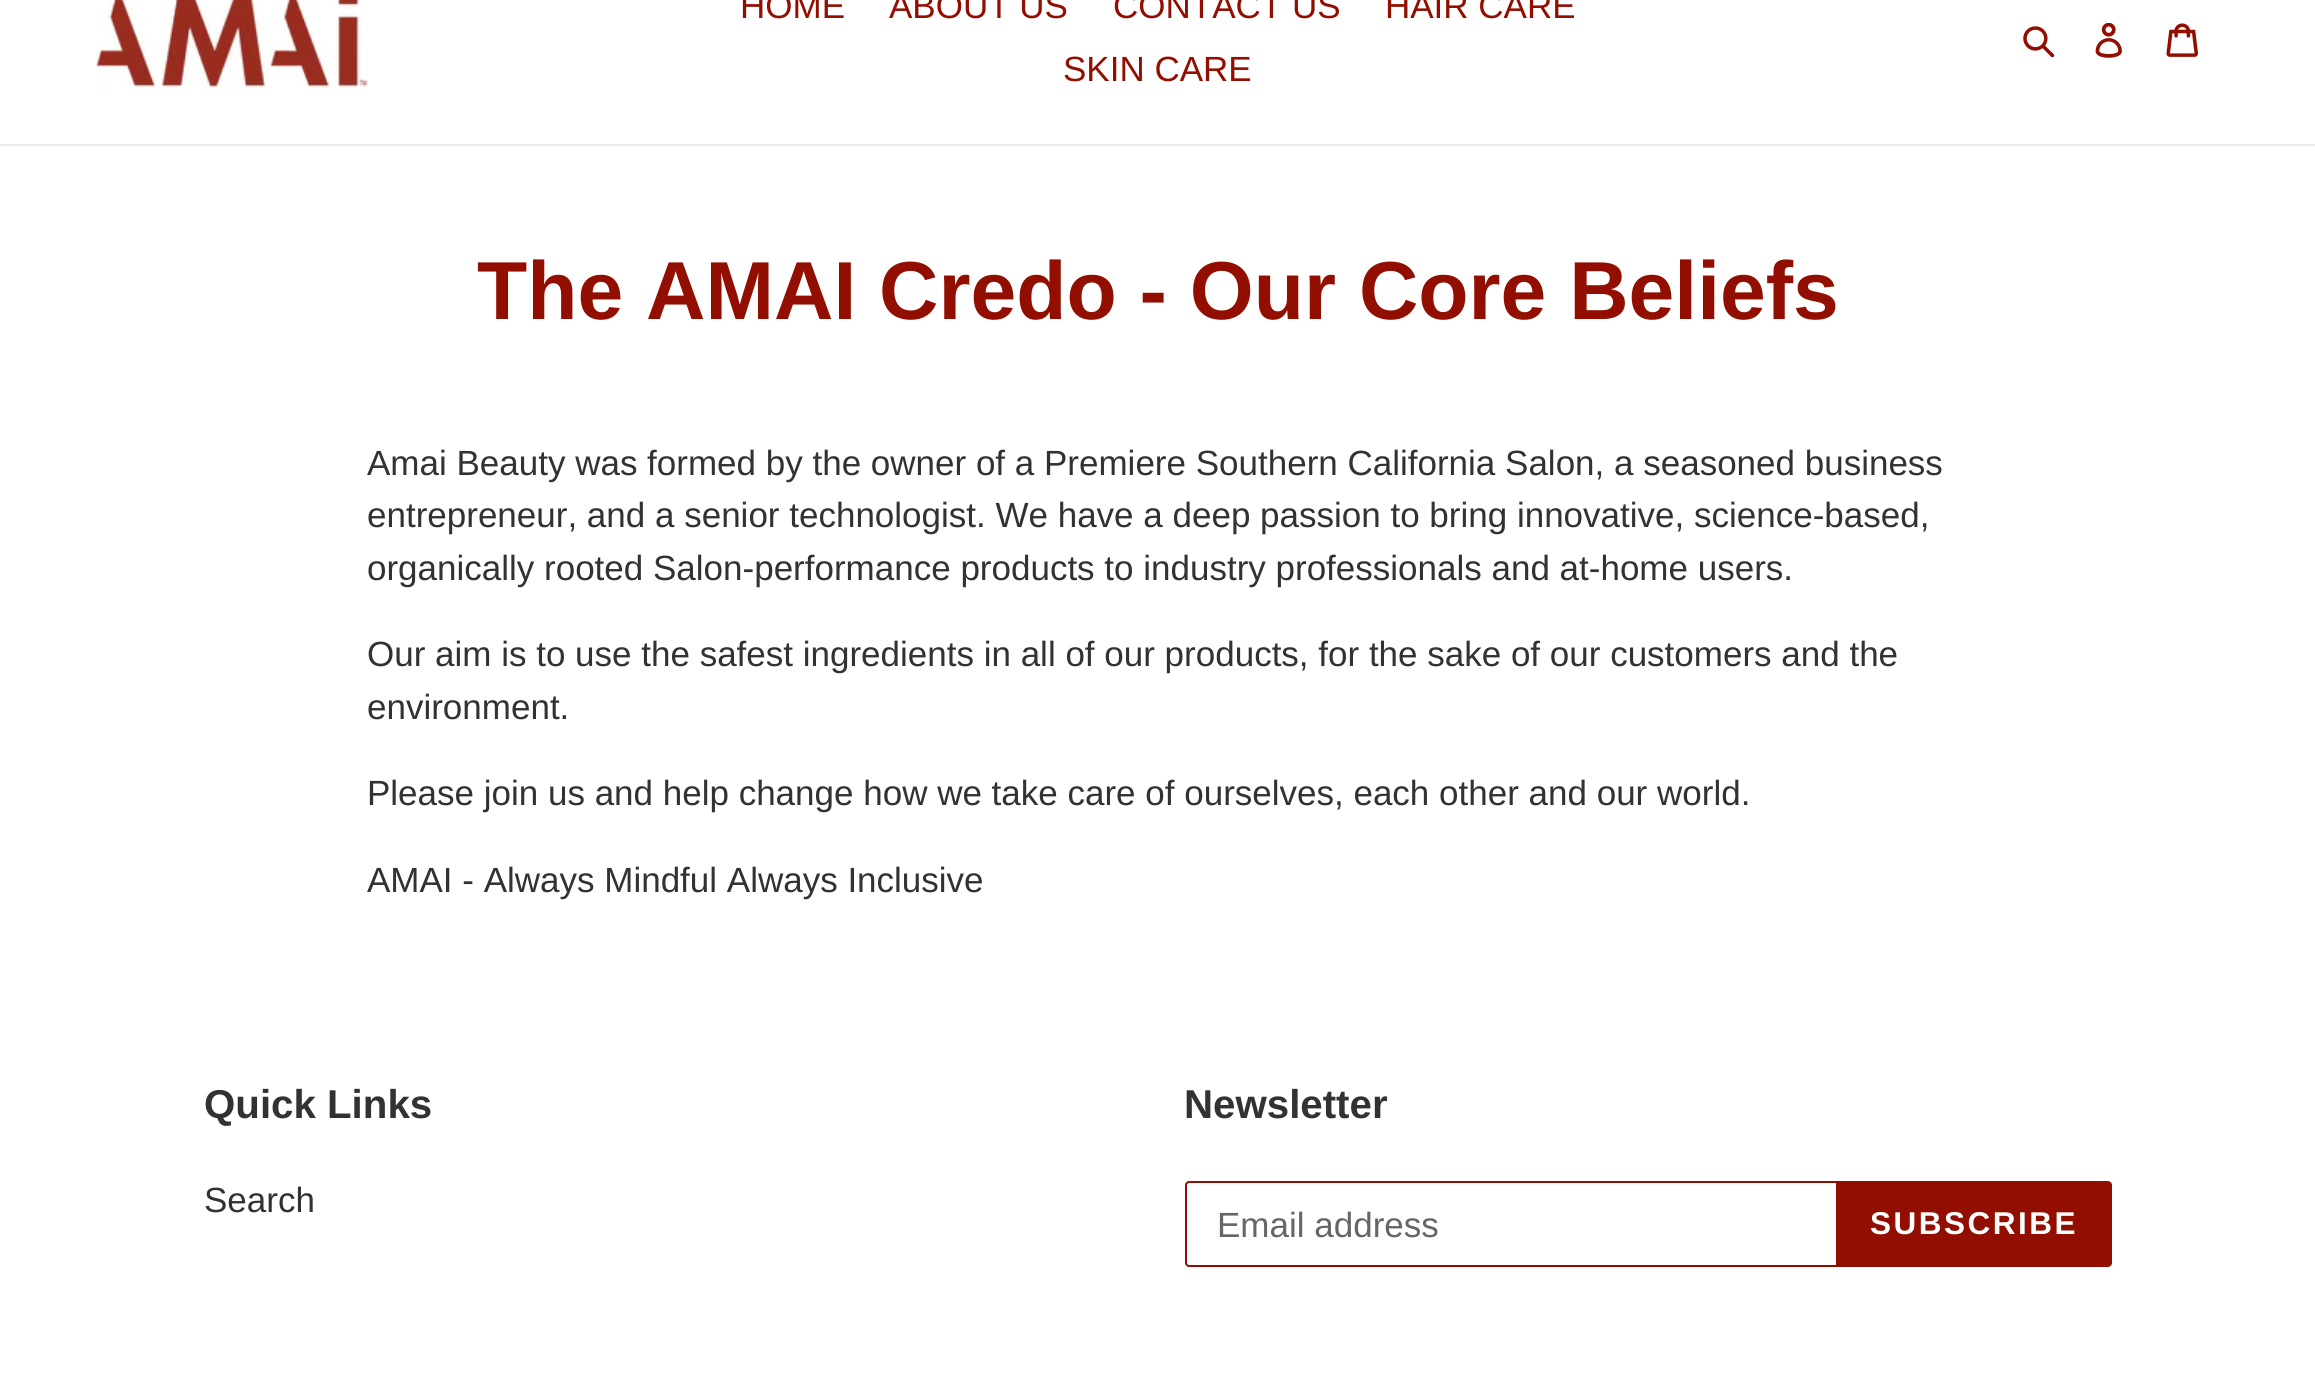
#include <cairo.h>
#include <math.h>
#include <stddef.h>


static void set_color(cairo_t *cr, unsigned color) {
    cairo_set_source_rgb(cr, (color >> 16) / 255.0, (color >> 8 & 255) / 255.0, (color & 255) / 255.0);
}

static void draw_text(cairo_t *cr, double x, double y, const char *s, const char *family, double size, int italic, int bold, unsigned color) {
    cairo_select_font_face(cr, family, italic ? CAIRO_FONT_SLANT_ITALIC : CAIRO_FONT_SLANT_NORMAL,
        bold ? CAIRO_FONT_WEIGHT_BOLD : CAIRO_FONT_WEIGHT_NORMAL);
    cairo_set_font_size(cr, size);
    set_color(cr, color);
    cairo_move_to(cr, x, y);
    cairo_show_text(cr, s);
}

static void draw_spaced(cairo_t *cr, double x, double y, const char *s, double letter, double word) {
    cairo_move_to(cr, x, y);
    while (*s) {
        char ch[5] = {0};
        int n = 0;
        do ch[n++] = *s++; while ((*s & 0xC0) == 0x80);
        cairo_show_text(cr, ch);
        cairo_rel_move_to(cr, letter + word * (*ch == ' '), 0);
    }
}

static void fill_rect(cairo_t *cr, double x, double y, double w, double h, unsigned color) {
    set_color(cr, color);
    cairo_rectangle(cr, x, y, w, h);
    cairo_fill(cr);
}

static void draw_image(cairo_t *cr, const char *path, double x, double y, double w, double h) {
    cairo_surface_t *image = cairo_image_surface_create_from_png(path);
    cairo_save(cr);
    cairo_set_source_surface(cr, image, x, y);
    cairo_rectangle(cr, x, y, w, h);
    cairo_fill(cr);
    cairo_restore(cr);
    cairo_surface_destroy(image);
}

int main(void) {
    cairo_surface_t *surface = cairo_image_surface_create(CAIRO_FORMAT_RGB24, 2315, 1386);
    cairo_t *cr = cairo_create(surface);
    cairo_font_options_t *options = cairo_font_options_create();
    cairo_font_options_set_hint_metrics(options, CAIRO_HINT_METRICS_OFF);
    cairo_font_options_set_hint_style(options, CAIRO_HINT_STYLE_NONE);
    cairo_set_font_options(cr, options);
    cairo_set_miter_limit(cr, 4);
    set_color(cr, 0xFFFFFF);
    cairo_paint(cr);
    fill_rect(cr, 0, 144, 2315, 2, 0xEBEBEB);
    draw_image(cr, "assets/img1.png", 96, 0, 272, 90);
    draw_text(cr, 740, 18, "HOME", "Liberation Sans", 35, 0, 0, 0x910E00);
    draw_text(cr, 889, 18, "ABOUT US", "Liberation Sans", 35, 0, 0, 0x910E00);
    draw_text(cr, 1113, 18, "CONTACT US", "Liberation Sans", 35, 0, 0, 0x910E00);
    draw_text(cr, 1385, 18, "HAIR CARE", "Liberation Sans", 35, 0, 0, 0x910E00);
    draw_text(cr, 1063, 81, "SKIN CARE", "Liberation Sans", 35, 0, 0, 0x910E00);
    draw_image(cr, "assets/img2.png", 2023, 26, 32, 32);
    draw_image(cr, "assets/img3.png", 2095, 23, 27, 35);
    draw_image(cr, "assets/img4.png", 2166, 23, 32, 34);
    draw_text(cr, 477, 319, "The AMAI Credo - Our Core Beliefs", "Liberation Sans", 82.25, 0, 1, 0x910E00);
    draw_text(cr, 367, 475, "Amai Beauty was formed by the owner of a Premiere Southern California Salon, a seasoned business", "Liberation Sans", 35, 0, 0, 0x333232);
    draw_text(cr, 367, 527, "entrepreneur, and a senior technologist. We have a deep passion to bring innovative, science-based,", "Liberation Sans", 35, 0, 0, 0x333232);
    draw_text(cr, 367, 580, "organically rooted Salon-performance products to industry professionals and at-home users.", "Liberation Sans", 35, 0, 0, 0x333232);
    draw_text(cr, 367, 666, "Our aim is to use the safest ingredients in all of our products, for the sake of our customers and the", "Liberation Sans", 35, 0, 0, 0x333232);
    draw_text(cr, 367, 719, "environment.", "Liberation Sans", 35, 0, 0, 0x333232);
    draw_text(cr, 367, 805, "Please join us and help change how we take care of ourselves, each other and our world.", "Liberation Sans", 35, 0, 0, 0x333232);
    draw_text(cr, 367, 892, "AMAI - Always Mindful Always Inclusive", "Liberation Sans", 35, 0, 0, 0x333232);
    draw_text(cr, 204, 1118, "Quick Links", "Liberation Sans", 40.25, 0, 1, 0x333232);
    draw_text(cr, 204, 1212, "Search", "Liberation Sans", 35, 0, 0, 0x333232);
    draw_text(cr, 1184, 1118, "Newsletter", "Liberation Sans", 40.25, 0, 1, 0x333232);
    cairo_new_path(cr);
    cairo_move_to(cr, 1189, 1182);
    cairo_line_to(cr, 1837, 1182);
    cairo_line_to(cr, 1837, 1266);
    cairo_line_to(cr, 1189, 1266);
    cairo_curve_to(cr, 1187.5, 1266, 1186, 1264.5, 1186, 1263);
    cairo_line_to(cr, 1186, 1185);
    cairo_curve_to(cr, 1186, 1183.5, 1187.5, 1182, 1189, 1182);
    cairo_close_path(cr);
    set_color(cr, 0x910E00);
    cairo_stroke(cr);
    draw_text(cr, 1217, 1237, "Email address", "Liberation Sans", 35, 0, 0, 0x666666);
    set_color(cr, 0x910E00);
    cairo_new_path(cr);
    cairo_move_to(cr, 1838, 1181);
    cairo_line_to(cr, 2108, 1181);
    cairo_curve_to(cr, 2110, 1181, 2112, 1183, 2112, 1185);
    cairo_line_to(cr, 2112, 1263);
    cairo_curve_to(cr, 2112, 1265, 2110, 1267, 2108, 1267);
    cairo_line_to(cr, 1838, 1267);
    cairo_close_path(cr);
    cairo_fill(cr);
    cairo_select_font_face(cr, "Liberation Sans", CAIRO_FONT_SLANT_NORMAL, CAIRO_FONT_WEIGHT_BOLD);
    cairo_set_font_size(cr, 31.5);
    set_color(cr, 0xFFFFFF);
    draw_spaced(cr, 1870, 1234, "SUBSCRIBE", 2.5, 0);
    cairo_surface_write_to_png(surface, "output.png");
    cairo_font_options_destroy(options);
    cairo_destroy(cr);
    cairo_surface_destroy(surface);
    return 0;
}
